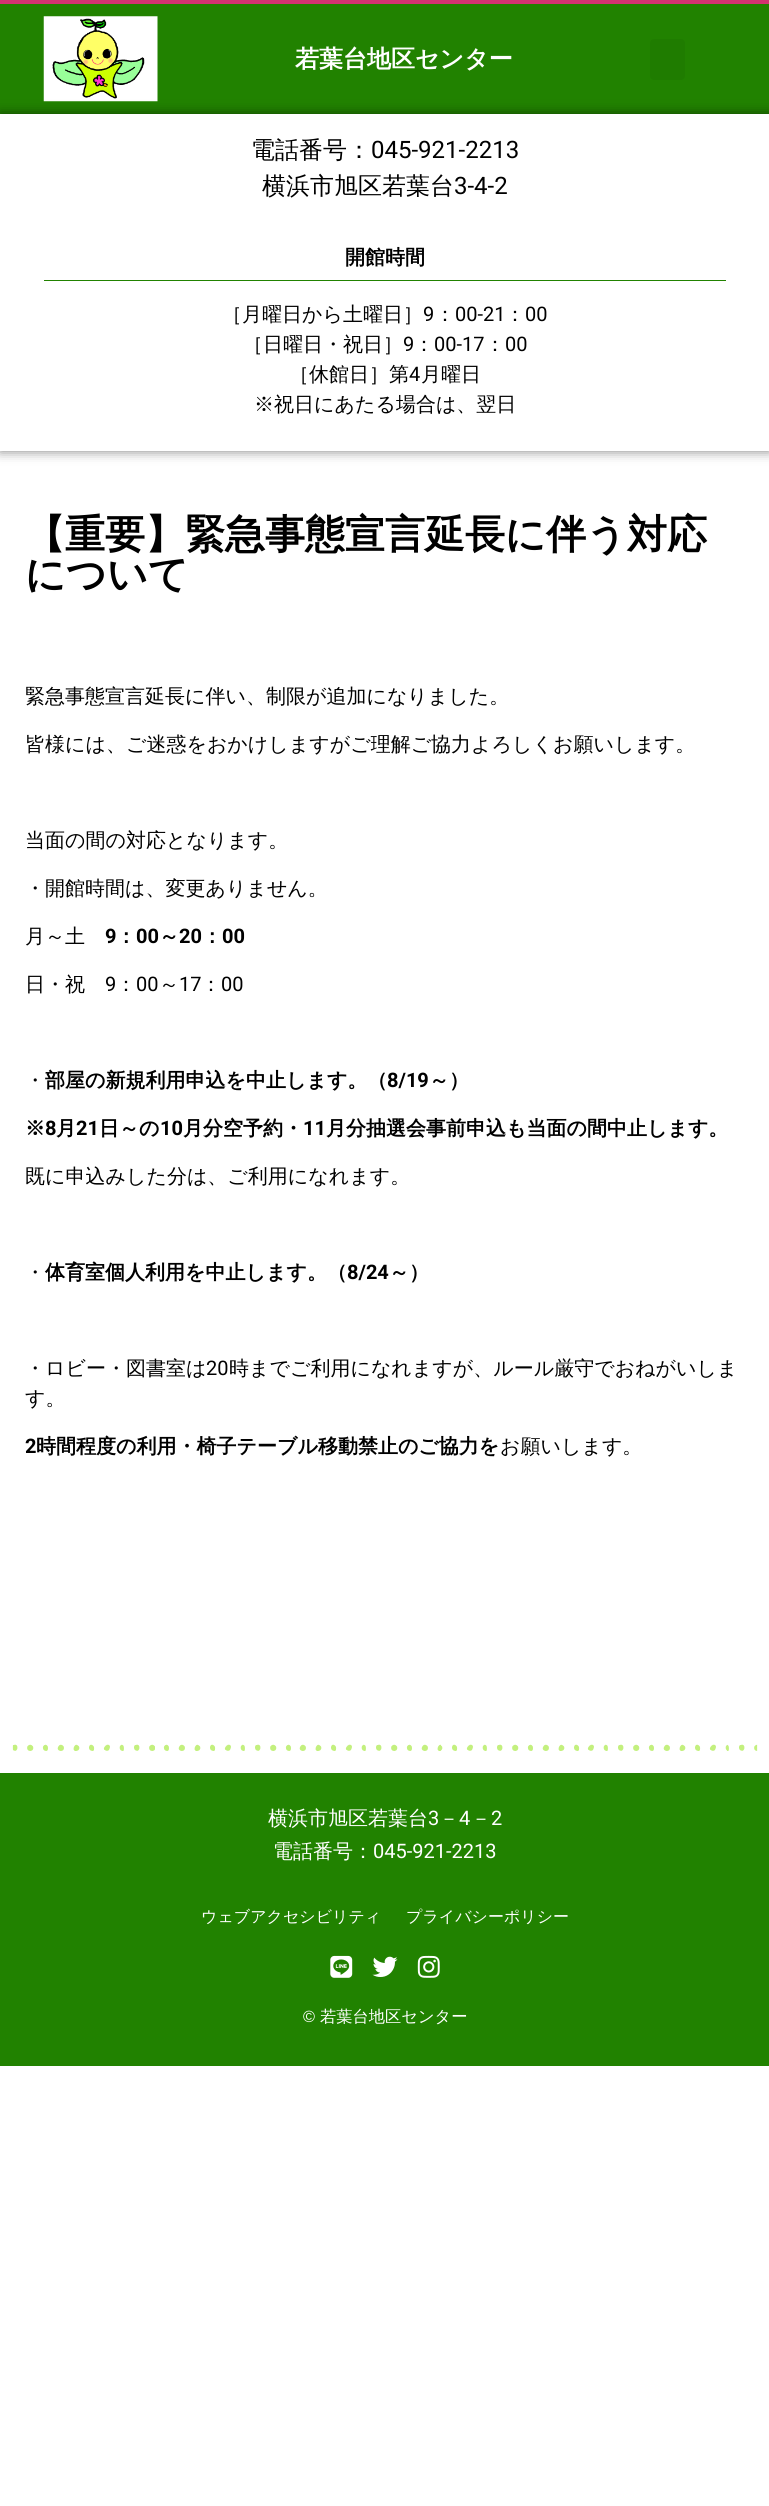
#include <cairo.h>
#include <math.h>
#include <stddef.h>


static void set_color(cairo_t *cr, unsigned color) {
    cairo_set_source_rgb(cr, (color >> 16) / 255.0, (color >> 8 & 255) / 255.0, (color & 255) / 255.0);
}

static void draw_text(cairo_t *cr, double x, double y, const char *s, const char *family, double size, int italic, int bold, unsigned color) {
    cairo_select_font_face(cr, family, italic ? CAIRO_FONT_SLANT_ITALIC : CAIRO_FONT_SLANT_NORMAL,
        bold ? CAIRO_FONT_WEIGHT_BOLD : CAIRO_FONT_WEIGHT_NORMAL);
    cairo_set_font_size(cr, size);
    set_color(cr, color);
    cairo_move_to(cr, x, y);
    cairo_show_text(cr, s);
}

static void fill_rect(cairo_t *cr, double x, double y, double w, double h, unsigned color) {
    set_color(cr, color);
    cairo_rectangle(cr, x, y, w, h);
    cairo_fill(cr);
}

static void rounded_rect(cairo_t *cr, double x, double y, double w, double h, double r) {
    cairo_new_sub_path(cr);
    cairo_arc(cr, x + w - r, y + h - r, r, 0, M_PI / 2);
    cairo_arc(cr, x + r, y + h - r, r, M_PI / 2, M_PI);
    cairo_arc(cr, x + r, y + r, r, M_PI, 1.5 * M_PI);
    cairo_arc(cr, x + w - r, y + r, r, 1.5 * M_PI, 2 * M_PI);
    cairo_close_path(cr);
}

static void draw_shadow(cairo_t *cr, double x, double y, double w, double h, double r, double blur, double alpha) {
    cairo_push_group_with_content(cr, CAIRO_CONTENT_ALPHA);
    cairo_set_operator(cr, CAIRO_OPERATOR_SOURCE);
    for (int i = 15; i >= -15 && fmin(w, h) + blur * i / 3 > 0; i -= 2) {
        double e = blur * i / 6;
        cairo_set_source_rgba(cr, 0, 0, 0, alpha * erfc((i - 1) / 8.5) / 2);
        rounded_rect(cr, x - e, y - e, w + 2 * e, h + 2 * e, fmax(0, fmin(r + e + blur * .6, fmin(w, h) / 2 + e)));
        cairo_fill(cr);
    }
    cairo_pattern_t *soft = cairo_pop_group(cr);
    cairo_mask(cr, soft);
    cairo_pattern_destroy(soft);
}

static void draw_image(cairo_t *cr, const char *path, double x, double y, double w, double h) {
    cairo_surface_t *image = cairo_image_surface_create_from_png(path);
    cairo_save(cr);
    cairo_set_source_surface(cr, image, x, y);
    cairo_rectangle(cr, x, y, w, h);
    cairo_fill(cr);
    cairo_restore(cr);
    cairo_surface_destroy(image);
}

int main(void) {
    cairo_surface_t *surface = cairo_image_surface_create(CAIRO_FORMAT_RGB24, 769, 2506);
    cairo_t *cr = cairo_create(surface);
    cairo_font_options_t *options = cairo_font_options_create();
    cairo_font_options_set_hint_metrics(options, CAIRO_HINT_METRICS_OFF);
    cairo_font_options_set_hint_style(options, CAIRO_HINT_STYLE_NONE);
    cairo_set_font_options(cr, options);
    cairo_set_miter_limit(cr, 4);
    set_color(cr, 0xFFFFFF);
    cairo_paint(cr);
    fill_rect(cr, 0, 4, 769, 110, 0x218200);
    fill_rect(cr, 0, 0, 769, 4, 0xD43372);
    draw_image(cr, "assets/img1.png", 43, 16, 115, 86);
    draw_text(cr, 295, 67, "若葉台地区センター", "WenQuanYi Zen Hei", 24, 0, 1, 0xFFFFFF);
    set_color(cr, 0x1F7C00);
    rounded_rect(cr, 650, 39, 35, 41, 4);
    cairo_fill(cr);
    cairo_save(cr);
    cairo_set_fill_rule(cr, CAIRO_FILL_RULE_EVEN_ODD);
    cairo_new_path(cr);
    cairo_move_to(cr, 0, 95);
    cairo_line_to(cr, 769, 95);
    cairo_line_to(cr, 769, 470);
    cairo_line_to(cr, 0, 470);
    cairo_close_path(cr);
    cairo_move_to(cr, 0, 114);
    cairo_line_to(cr, 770, 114);
    cairo_line_to(cr, 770, 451);
    cairo_line_to(cr, 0, 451);
    cairo_close_path(cr);
    cairo_clip(cr);
    set_color(cr, 0x000000);
    draw_shadow(cr, 0, 114, 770, 337, 0, 6, 0.5);
    cairo_restore(cr);
    draw_text(cr, 251, 158, "電話番号：", "WenQuanYi Zen Hei Medium", 24, 0, 0, 0x000000);
    draw_text(cr, 371, 158, "045-921-2213", "Roboto", 24, 0, 0, 0x000000);
    draw_text(cr, 262, 194, "横浜市旭区若葉台", "WenQuanYi Zen Hei Medium", 24, 0, 0, 0x000000);
    draw_text(cr, 454, 194, "3-4-2", "Roboto", 24, 0, 0, 0x000000);
    fill_rect(cr, 44, 280, 682, 1, 0x218200);
    draw_text(cr, 345, 264, "開館時間", "WenQuanYi Zen Hei", 20, 0, 1, 0x000000);
    draw_text(cr, 222, 321, "［月曜日から土曜日］", "WenQuanYi Zen Hei Medium", 20, 0, 0, 0x000000);
    draw_text(cr, 423, 321, "9", "Roboto", 20, 0, 0, 0x000000);
    draw_text(cr, 435, 321, "：", "WenQuanYi Zen Hei Medium", 20, 0, 0, 0x000000);
    draw_text(cr, 455, 321, "00-21", "Roboto", 20, 0, 0, 0x000000);
    draw_text(cr, 505, 321, "：", "WenQuanYi Zen Hei Medium", 20, 0, 0, 0x000000);
    draw_text(cr, 525, 321, "00", "Roboto", 20, 0, 0, 0x000000);
    draw_text(cr, 243, 351, "［日曜日・祝日］", "WenQuanYi Zen Hei Medium", 20, 0, 0, 0x000000);
    draw_text(cr, 403, 351, "9", "Roboto", 20, 0, 0, 0x000000);
    draw_text(cr, 414, 351, "：", "WenQuanYi Zen Hei Medium", 20, 0, 0, 0x000000);
    draw_text(cr, 434, 351, "00-17", "Roboto", 20, 0, 0, 0x000000);
    draw_text(cr, 485, 351, "：", "WenQuanYi Zen Hei Medium", 20, 0, 0, 0x000000);
    draw_text(cr, 505, 351, "00", "Roboto", 20, 0, 0, 0x000000);
    draw_text(cr, 289, 381, "［休館日］第", "WenQuanYi Zen Hei Medium", 20, 0, 0, 0x000000);
    draw_text(cr, 409, 381, "4", "Roboto", 20, 0, 0, 0x000000);
    draw_text(cr, 421, 381, "月曜日", "WenQuanYi Zen Hei Medium", 20, 0, 0, 0x000000);
    draw_text(cr, 254, 411, "※祝日にあたる場合は、翌日", "WenQuanYi Zen Hei Medium", 20, 0, 0, 0x000000);
    draw_text(cr, 25, 548, "【重要】緊急事態宣言延長に伴う対応", "WenQuanYi Zen Hei", 40, 0, 1, 0x000000);
    draw_text(cr, 25, 588, "について", "WenQuanYi Zen Hei", 40, 0, 1, 0x000000);
    draw_text(cr, 25, 703, "緊急事態宣言延長に伴い、制限が追加になりました。", "WenQuanYi Zen Hei Medium", 20, 0, 0, 0x000000);
    draw_text(cr, 25, 751, "皆様には、ご迷惑をおかけしますがご理解ご協力よろしくお願いします。", "WenQuanYi Zen Hei Medium", 20, 0, 0, 0x000000);
    draw_text(cr, 25, 847, "当面の間の対応となります。", "WenQuanYi Zen Hei Medium", 20, 0, 0, 0x000000);
    draw_text(cr, 25, 895, "・開館時間は、変更ありません。", "WenQuanYi Zen Hei Medium", 20, 0, 0, 0x000000);
    draw_text(cr, 25, 943, "月～土", "WenQuanYi Zen Hei Medium", 20, 0, 0, 0x000000);
    draw_text(cr, 105, 943, "9", "Roboto", 20, 0, 1, 0x000000);
    draw_text(cr, 116, 943, "：", "WenQuanYi Zen Hei", 20, 0, 1, 0x000000);
    draw_text(cr, 136, 943, "00", "Roboto", 20, 0, 1, 0x000000);
    draw_text(cr, 159, 943, "～", "WenQuanYi Zen Hei", 20, 0, 1, 0x000000);
    draw_text(cr, 179, 943, "20", "Roboto", 20, 0, 1, 0x000000);
    draw_text(cr, 202, 943, "：", "WenQuanYi Zen Hei", 20, 0, 1, 0x000000);
    draw_text(cr, 222, 943, "00", "Roboto", 20, 0, 1, 0x000000);
    draw_text(cr, 25, 991, "日・祝", "WenQuanYi Zen Hei Medium", 20, 0, 0, 0x000000);
    draw_text(cr, 105, 991, "9", "Roboto", 20, 0, 0, 0x000000);
    draw_text(cr, 116, 991, "：", "WenQuanYi Zen Hei Medium", 20, 0, 0, 0x000000);
    draw_text(cr, 136, 991, "00", "Roboto", 20, 0, 0, 0x000000);
    draw_text(cr, 159, 991, "～", "WenQuanYi Zen Hei Medium", 20, 0, 0, 0x000000);
    draw_text(cr, 179, 991, "17", "Roboto", 20, 0, 0, 0x000000);
    draw_text(cr, 201, 991, "：", "WenQuanYi Zen Hei Medium", 20, 0, 0, 0x000000);
    draw_text(cr, 221, 991, "00", "Roboto", 20, 0, 0, 0x000000);
    draw_text(cr, 25, 1087, "・", "WenQuanYi Zen Hei Medium", 20, 0, 0, 0x000000);
    draw_text(cr, 45, 1087, "部屋の新規利用申込を中止します。（", "WenQuanYi Zen Hei", 20, 0, 1, 0x000000);
    draw_text(cr, 387, 1087, "8/19", "Roboto", 20, 0, 1, 0x000000);
    draw_text(cr, 429, 1087, "～）", "WenQuanYi Zen Hei", 20, 0, 1, 0x000000);
    draw_text(cr, 25, 1135, "※", "WenQuanYi Zen Hei", 20, 0, 1, 0x000000);
    draw_text(cr, 45, 1135, "8", "Roboto", 20, 0, 1, 0x000000);
    draw_text(cr, 56, 1135, "月", "WenQuanYi Zen Hei", 20, 0, 1, 0x000000);
    draw_text(cr, 76, 1135, "21", "Roboto", 20, 0, 1, 0x000000);
    draw_text(cr, 99, 1135, "日～の", "WenQuanYi Zen Hei", 20, 0, 1, 0x000000);
    draw_text(cr, 160, 1135, "10", "Roboto", 20, 0, 1, 0x000000);
    draw_text(cr, 183, 1135, "月分空予約・", "WenQuanYi Zen Hei", 20, 0, 1, 0x000000);
    draw_text(cr, 303, 1135, "11", "Roboto", 20, 0, 1, 0x000000);
    draw_text(cr, 326, 1135, "月分抽選会事前申込も当面の間中止します。", "WenQuanYi Zen Hei", 20, 0, 1, 0x000000);
    draw_text(cr, 25, 1183, "既に申込みした分は、ご利用になれます。", "WenQuanYi Zen Hei Medium", 20, 0, 0, 0x000000);
    draw_text(cr, 25, 1279, "・", "WenQuanYi Zen Hei Medium", 20, 0, 0, 0x000000);
    draw_text(cr, 45, 1279, "体育室個人利用を中止します。（", "WenQuanYi Zen Hei", 20, 0, 1, 0x000000);
    draw_text(cr, 347, 1279, "8/24", "Roboto", 20, 0, 1, 0x000000);
    draw_text(cr, 389, 1279, "～）", "WenQuanYi Zen Hei", 20, 0, 1, 0x000000);
    draw_text(cr, 25, 1375, "・ロビー・図書室は", "WenQuanYi Zen Hei Medium", 20, 0, 0, 0x000000);
    draw_text(cr, 206, 1375, "20", "Roboto", 20, 0, 0, 0x000000);
    draw_text(cr, 229, 1375, "時までご利用になれますが、ルール厳守でおねがいしま", "WenQuanYi Zen Hei Medium", 20, 0, 0, 0x000000);
    draw_text(cr, 25, 1405, "す。", "WenQuanYi Zen Hei Medium", 20, 0, 0, 0x000000);
    draw_text(cr, 25, 1453, "2", "Roboto", 20, 0, 1, 0x000000);
    draw_text(cr, 36, 1453, "時間程度の利用・椅子テーブル移動禁止のご協力を", "WenQuanYi Zen Hei", 20, 0, 1, 0x000000);
    draw_text(cr, 500, 1453, "お願いします。", "WenQuanYi Zen Hei Medium", 20, 0, 0, 0x000000);
    draw_image(cr, "assets/img2.png", 12, 1744, 746, 7);
    fill_rect(cr, 0, 1773, 769, 293, 0x218200);
    draw_text(cr, 268, 1825, "横浜市旭区若葉台", "WenQuanYi Zen Hei Medium", 20, 0, 0, 0xFFFFFF);
    draw_text(cr, 428, 1825, "3", "Roboto", 20, 0, 0, 0xFFFFFF);
    draw_text(cr, 439, 1825, "－", "WenQuanYi Zen Hei Medium", 20, 0, 0, 0xFFFFFF);
    draw_text(cr, 459, 1825, "4", "Roboto", 20, 0, 0, 0xFFFFFF);
    draw_text(cr, 471, 1825, "－", "WenQuanYi Zen Hei Medium", 20, 0, 0, 0xFFFFFF);
    draw_text(cr, 491, 1825, "2", "Roboto", 20, 0, 0, 0xFFFFFF);
    draw_text(cr, 273, 1858, "電話番号：", "WenQuanYi Zen Hei Medium", 20, 0, 0, 0xFFFFFF);
    draw_text(cr, 373, 1858, "045-921-2213", "Roboto", 20, 0, 0, 0xFFFFFF);
    draw_text(cr, 201, 1922, "ウェブアクセシビリティ", "WenQuanYi Zen Hei Medium", 16, 0, 0, 0xFFFFFF);
    draw_text(cr, 406, 1922, "プライバシーポリシー", "WenQuanYi Zen Hei Medium", 16, 0, 0, 0xFFFFFF);
    draw_image(cr, "assets/img3.png", 330, 1955, 23, 23);
    draw_image(cr, "assets/img4.png", 372, 1956, 26, 21);
    draw_image(cr, "assets/img5.png", 417, 1955, 23, 23);
    draw_text(cr, 303, 2022, "©", "Liberation Sans", 16.25, 0, 0, 0xFFFFFF);
    draw_text(cr, 320, 2022, "若葉台地区センター", "WenQuanYi Zen Hei Medium", 16.25, 0, 0, 0xFFFFFF);
    cairo_surface_write_to_png(surface, "output.png");
    cairo_font_options_destroy(options);
    cairo_destroy(cr);
    cairo_surface_destroy(surface);
    return 0;
}
